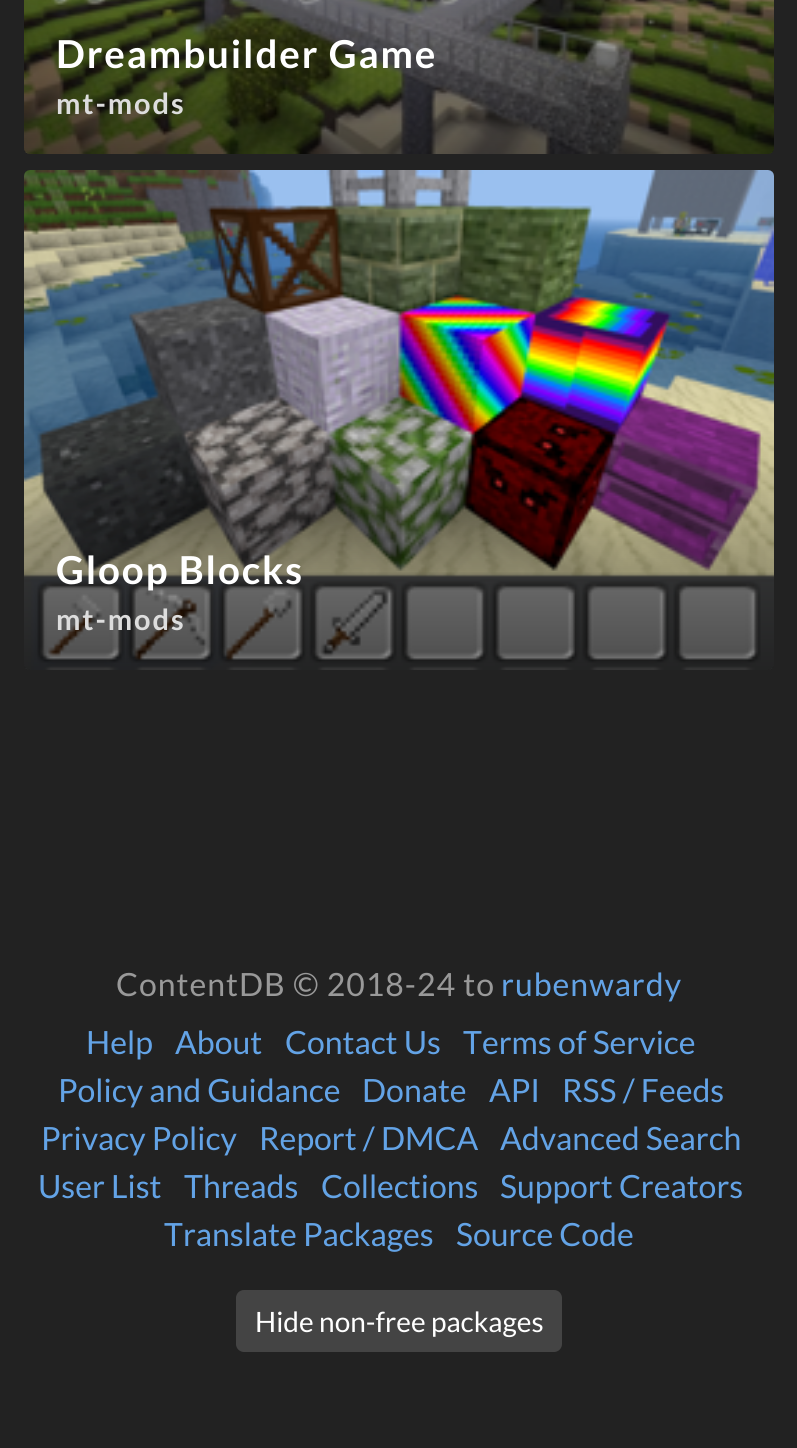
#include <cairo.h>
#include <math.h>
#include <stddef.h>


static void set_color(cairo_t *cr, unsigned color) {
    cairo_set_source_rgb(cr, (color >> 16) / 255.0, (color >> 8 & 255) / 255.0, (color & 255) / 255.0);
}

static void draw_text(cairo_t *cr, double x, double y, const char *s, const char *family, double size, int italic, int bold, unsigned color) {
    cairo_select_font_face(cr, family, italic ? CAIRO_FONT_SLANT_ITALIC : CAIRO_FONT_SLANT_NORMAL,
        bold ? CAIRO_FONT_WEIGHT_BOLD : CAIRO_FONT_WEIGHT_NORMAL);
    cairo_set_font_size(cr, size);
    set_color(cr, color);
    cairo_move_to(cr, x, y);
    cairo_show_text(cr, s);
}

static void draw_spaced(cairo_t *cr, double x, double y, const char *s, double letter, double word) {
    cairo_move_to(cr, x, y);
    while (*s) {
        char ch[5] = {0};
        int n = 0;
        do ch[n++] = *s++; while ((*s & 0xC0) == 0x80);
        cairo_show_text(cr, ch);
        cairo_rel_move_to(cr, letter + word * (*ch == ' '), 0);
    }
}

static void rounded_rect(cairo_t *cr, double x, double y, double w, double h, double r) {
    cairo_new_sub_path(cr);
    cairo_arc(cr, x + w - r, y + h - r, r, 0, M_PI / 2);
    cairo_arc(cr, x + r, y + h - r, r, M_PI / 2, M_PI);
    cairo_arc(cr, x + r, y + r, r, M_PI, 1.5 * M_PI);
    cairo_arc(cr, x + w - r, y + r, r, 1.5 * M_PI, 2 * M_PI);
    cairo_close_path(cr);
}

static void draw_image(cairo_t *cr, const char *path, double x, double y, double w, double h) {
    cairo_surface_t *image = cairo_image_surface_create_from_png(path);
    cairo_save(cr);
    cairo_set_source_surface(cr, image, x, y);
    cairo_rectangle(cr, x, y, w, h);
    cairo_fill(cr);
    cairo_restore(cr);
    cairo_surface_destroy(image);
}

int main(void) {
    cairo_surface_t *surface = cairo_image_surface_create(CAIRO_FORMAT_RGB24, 797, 1448);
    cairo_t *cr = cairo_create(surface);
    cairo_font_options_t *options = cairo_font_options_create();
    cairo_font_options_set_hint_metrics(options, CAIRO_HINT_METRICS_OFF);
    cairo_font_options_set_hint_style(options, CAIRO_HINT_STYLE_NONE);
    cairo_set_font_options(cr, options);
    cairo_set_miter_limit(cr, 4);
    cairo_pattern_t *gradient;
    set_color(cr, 0x222222);
    cairo_paint(cr);
    draw_image(cr, "assets/img1.png", 24, 0, 750, 154);
    gradient = cairo_pattern_create_linear(399, -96, 399, 154);
    cairo_pattern_add_color_stop_rgba(gradient, 0, 0, 0, 0, 0);
    cairo_pattern_add_color_stop_rgba(gradient, 1, 0, 0, 0, 0.5);
    cairo_set_source(cr, gradient);
    cairo_pattern_destroy(gradient);
    cairo_new_path(cr);
    cairo_move_to(cr, 24, -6);
    cairo_line_to(cr, 774, -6);
    cairo_line_to(cr, 774, 148);
    cairo_curve_to(cr, 774, 151.5, 771.5, 154, 768, 154);
    cairo_line_to(cr, 30, 154);
    cairo_curve_to(cr, 26.5, 154, 24, 151.5, 24, 148);
    cairo_close_path(cr);
    cairo_fill(cr);
    cairo_select_font_face(cr, "Lato", CAIRO_FONT_SLANT_NORMAL, CAIRO_FONT_WEIGHT_BOLD);
    cairo_set_font_size(cr, 38.5);
    set_color(cr, 0xFFFFFF);
    draw_spaced(cr, 56, 68, "Dreambuilder Game", 1.9, 0);
    cairo_set_font_size(cr, 29);
    set_color(cr, 0xDDDDDD);
    draw_spaced(cr, 56, 114, "mt-mods", 1.9, 0);
    draw_image(cr, "assets/img2.png", 24, 170, 750, 500);
    gradient = cairo_pattern_create_linear(399, 420, 399, 670);
    cairo_pattern_add_color_stop_rgba(gradient, 0, 0, 0, 0, 0);
    cairo_pattern_add_color_stop_rgba(gradient, 1, 0, 0, 0, 0.5);
    cairo_set_source(cr, gradient);
    cairo_pattern_destroy(gradient);
    cairo_new_path(cr);
    cairo_move_to(cr, 24, 420);
    cairo_line_to(cr, 774, 420);
    cairo_line_to(cr, 774, 664);
    cairo_curve_to(cr, 774, 667.5, 771.5, 670, 768, 670);
    cairo_line_to(cr, 30, 670);
    cairo_curve_to(cr, 26.5, 670, 24, 667.5, 24, 664);
    cairo_close_path(cr);
    cairo_fill(cr);
    cairo_set_font_size(cr, 38.5);
    set_color(cr, 0xFFFFFF);
    draw_spaced(cr, 56, 584, "Gloop Blocks", 1.9, 0);
    cairo_set_font_size(cr, 29);
    set_color(cr, 0xDDDDDD);
    draw_spaced(cr, 56, 630, "mt-mods", 1.9, 0);
    cairo_select_font_face(cr, "Lato", CAIRO_FONT_SLANT_NORMAL, CAIRO_FONT_WEIGHT_NORMAL);
    cairo_set_font_size(cr, 32);
    set_color(cr, 0x999999);
    draw_spaced(cr, 116, 996, "ContentDB © 2018-24 to", 1, 0);
    set_color(cr, 0x63A3E6);
    draw_spaced(cr, 501, 996, "rubenwardy", 1, 0);
    draw_text(cr, 86, 1054, "Help", "Lato", 32, 0, 0, 0x63A3E6);
    draw_text(cr, 175, 1054, "About", "Lato", 32, 0, 0, 0x63A3E6);
    draw_text(cr, 285, 1054, "Contact Us", "Lato", 32, 0, 0, 0x63A3E6);
    draw_text(cr, 463, 1054, "Terms of Service", "Lato", 32, 0, 0, 0x63A3E6);
    draw_text(cr, 58, 1102, "Policy and Guidance", "Lato", 32, 0, 0, 0x63A3E6);
    draw_text(cr, 362, 1102, "Donate", "Lato", 32, 0, 0, 0x63A3E6);
    draw_text(cr, 489, 1102, "API", "Lato", 32, 0, 0, 0x63A3E6);
    draw_text(cr, 562, 1102, "RSS / Feeds", "Lato", 32, 0, 0, 0x63A3E6);
    draw_text(cr, 41, 1150, "Privacy Policy", "Lato", 32, 0, 0, 0x63A3E6);
    draw_text(cr, 259, 1150, "Report / DMCA", "Lato", 32, 0, 0, 0x63A3E6);
    draw_text(cr, 500, 1150, "Advanced Search", "Lato", 32, 0, 0, 0x63A3E6);
    draw_text(cr, 38, 1198, "User List", "Lato", 32, 0, 0, 0x63A3E6);
    draw_text(cr, 184, 1198, "Threads", "Lato", 32, 0, 0, 0x63A3E6);
    draw_text(cr, 321, 1198, "Collections", "Lato", 32, 0, 0, 0x63A3E6);
    draw_text(cr, 500, 1198, "Support Creators", "Lato", 32, 0, 0, 0x63A3E6);
    draw_text(cr, 164, 1246, "Translate Packages", "Lato", 32, 0, 0, 0x63A3E6);
    draw_text(cr, 456, 1246, "Source Code", "Lato", 32, 0, 0, 0x63A3E6);
    set_color(cr, 0x444444);
    rounded_rect(cr, 237, 1291, 324, 60, 7);
    cairo_fill_preserve(cr);
    cairo_stroke(cr);
    draw_text(cr, 255, 1332, "Hide non-free packages", "Lato", 28, 0, 0, 0xFFFFFF);
    cairo_surface_write_to_png(surface, "output.png");
    cairo_font_options_destroy(options);
    cairo_destroy(cr);
    cairo_surface_destroy(surface);
    return 0;
}
